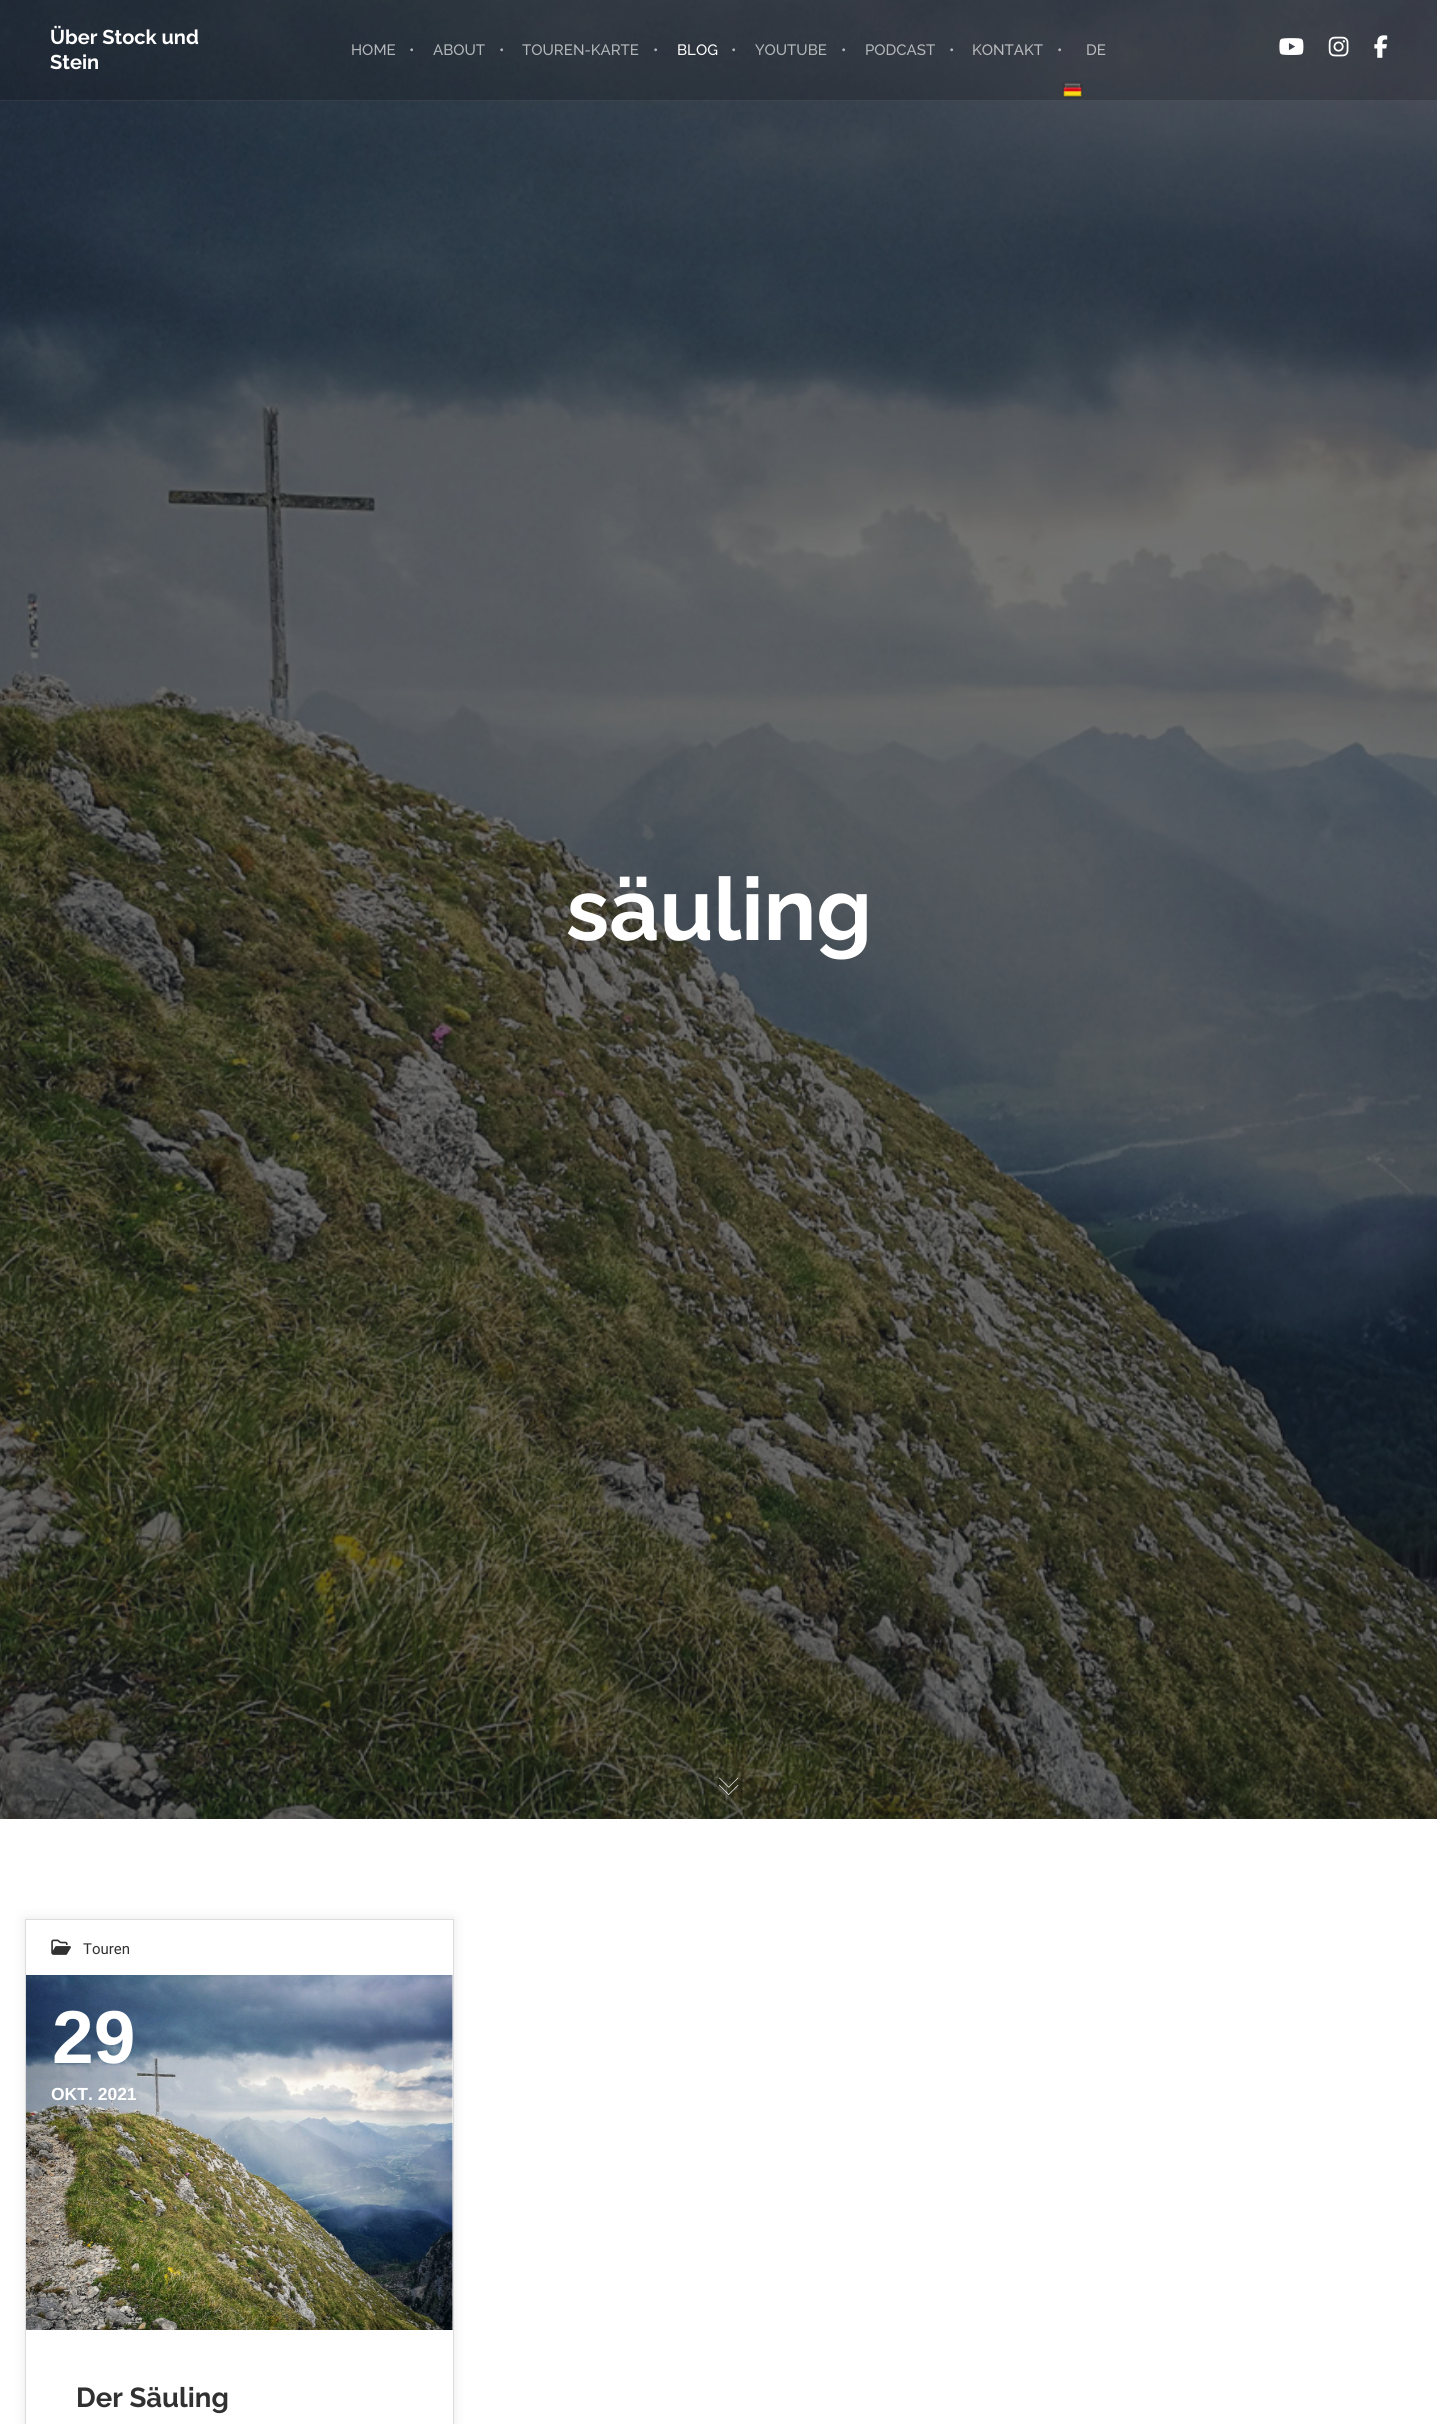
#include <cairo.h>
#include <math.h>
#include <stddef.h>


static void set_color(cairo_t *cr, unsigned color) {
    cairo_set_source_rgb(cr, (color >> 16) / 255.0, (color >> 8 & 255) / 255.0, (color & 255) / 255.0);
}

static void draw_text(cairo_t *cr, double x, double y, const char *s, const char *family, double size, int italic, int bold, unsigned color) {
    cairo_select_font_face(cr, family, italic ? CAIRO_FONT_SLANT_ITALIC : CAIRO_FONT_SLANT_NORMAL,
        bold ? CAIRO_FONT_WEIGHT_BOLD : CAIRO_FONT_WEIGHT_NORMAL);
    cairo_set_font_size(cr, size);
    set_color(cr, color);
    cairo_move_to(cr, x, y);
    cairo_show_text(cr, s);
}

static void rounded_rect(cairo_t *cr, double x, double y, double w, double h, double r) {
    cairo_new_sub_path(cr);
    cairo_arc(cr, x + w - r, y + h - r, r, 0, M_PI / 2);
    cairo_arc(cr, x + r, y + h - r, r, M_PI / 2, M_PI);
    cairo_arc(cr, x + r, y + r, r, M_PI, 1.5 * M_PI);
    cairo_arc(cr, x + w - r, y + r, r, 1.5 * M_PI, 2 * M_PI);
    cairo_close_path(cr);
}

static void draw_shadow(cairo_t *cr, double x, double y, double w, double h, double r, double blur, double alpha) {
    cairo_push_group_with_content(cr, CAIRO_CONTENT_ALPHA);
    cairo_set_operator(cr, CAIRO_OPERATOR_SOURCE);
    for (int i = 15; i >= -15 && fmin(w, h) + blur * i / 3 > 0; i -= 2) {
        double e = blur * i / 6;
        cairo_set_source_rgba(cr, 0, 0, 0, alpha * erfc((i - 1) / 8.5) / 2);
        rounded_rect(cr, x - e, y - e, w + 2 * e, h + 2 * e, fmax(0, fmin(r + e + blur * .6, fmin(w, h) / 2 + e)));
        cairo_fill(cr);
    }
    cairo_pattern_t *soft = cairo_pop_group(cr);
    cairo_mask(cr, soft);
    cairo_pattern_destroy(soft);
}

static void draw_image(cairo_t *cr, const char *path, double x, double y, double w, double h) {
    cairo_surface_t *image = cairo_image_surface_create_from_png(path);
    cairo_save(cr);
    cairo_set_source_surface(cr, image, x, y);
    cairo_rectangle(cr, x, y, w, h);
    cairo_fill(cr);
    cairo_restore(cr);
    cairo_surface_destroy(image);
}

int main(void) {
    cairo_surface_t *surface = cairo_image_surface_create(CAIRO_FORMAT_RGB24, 1437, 2424);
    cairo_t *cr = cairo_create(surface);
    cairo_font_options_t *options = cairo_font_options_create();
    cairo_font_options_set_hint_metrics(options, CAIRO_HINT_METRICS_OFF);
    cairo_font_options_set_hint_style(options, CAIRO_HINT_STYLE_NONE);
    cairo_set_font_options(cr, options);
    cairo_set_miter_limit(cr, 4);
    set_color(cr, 0xFFFFFF);
    cairo_paint(cr);
    draw_image(cr, "assets/img5.png", 0, 0, 1437, 1819);
    cairo_set_source_rgba(cr, 0.075, 0.078, 0.086, 0.25);
    cairo_rectangle(cr, 0, 0, 1437, 101);
    cairo_fill(cr);
    cairo_set_source_rgba(cr, 0.871, 0.871, 0.871, 0.1);
    cairo_rectangle(cr, 0, 100, 1437, 1);
    cairo_fill(cr);
    draw_text(cr, 50, 44, "Über Stock und", "Raleway", 20, 0, 1, 0xFFFFFF);
    draw_text(cr, 50, 69, "Stein", "Raleway", 20, 0, 1, 0xFFFFFF);
    draw_text(cr, 351, 55, "HOME", "Raleway Medium", 15, 0, 0, 0xB3B7BA);
    draw_text(cr, 409, 55, "•", "Raleway Medium", 15, 0, 0, 0xB3B7BA);
    draw_text(cr, 433, 55, "ABOUT", "Raleway Medium", 15, 0, 0, 0xB3B7BA);
    draw_text(cr, 499, 55, "•", "Raleway Medium", 15, 0, 0, 0xB3B7BA);
    draw_text(cr, 522, 55, "TOUREN-KARTE", "Raleway Medium", 15, 0, 0, 0xB3B7BA);
    draw_text(cr, 653, 55, "•", "Raleway Medium", 15, 0, 0, 0xB3B7BA);
    draw_text(cr, 677, 55, "BLOG", "Raleway Medium", 15, 0, 0, 0xFFFFFF);
    draw_text(cr, 731, 55, "•", "Raleway Medium", 15, 0, 0, 0xB3B7BA);
    draw_text(cr, 755, 55, "YOUTUBE", "Raleway Medium", 15, 0, 0, 0xB3B7BA);
    draw_text(cr, 841, 55, "•", "Raleway Medium", 15, 0, 0, 0xB3B7BA);
    draw_text(cr, 865, 55, "PODCAST", "Raleway Medium", 15, 0, 0, 0xB3B7BA);
    draw_text(cr, 949, 55, "•", "Raleway Medium", 15, 0, 0, 0xB9BBBE);
    draw_text(cr, 972, 55, "KONTAKT", "Raleway Medium", 15, 0, 0, 0xB9BBBE);
    draw_text(cr, 1057, 55, "•", "Raleway Medium", 15, 0, 0, 0xB9BBBE);
    draw_text(cr, 1086, 55, "DE", "Raleway Medium", 15, 0, 0, 0xB9BBBE);
    draw_image(cr, "assets/img1.png", 1062, 81, 21, 17);
    draw_image(cr, "assets/img2.png", 1279, 38, 25, 17);
    draw_image(cr, "assets/img3.png", 1328, 36, 21, 21);
    draw_image(cr, "assets/img4.png", 1374, 35, 14, 23);
    draw_text(cr, 566, 940, "säuling", "Raleway", 87.5, 0, 1, 0xFFFFFF);
    draw_image(cr, "assets/img6.png", 719, 1777, 20, 18);
    set_color(cr, 0x000000);
    draw_shadow(cr, 25, 1919, 429, 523, 0, 6, 0.09);
    set_color(cr, 0xFFFFFF);
    cairo_rectangle(cr, 25.5, 1919.5, 428, 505);
    cairo_fill_preserve(cr);
    set_color(cr, 0xDDDDDD);
    cairo_set_line_width(cr, 1);
    cairo_stroke(cr);
    draw_image(cr, "assets/img7.png", 51, 1939, 20, 16);
    draw_text(cr, 83, 1954, "Touren", "Roboto", 15, 0, 0, 0x313131);
    draw_image(cr, "assets/img8.png", 26, 1975, 427, 355);
    draw_text(cr, 52, 2063, "29", "Liberation Sans", 75, 0, 1, 0xFFFFFF);
    draw_text(cr, 51, 2100, "OKT. 2021", "Liberation Sans", 17.5, 0, 1, 0xFFFFFF);
    draw_text(cr, 76, 2407, "Der Säuling", "Raleway", 27.5, 0, 1, 0x313131);
    cairo_surface_write_to_png(surface, "output.png");
    cairo_font_options_destroy(options);
    cairo_destroy(cr);
    cairo_surface_destroy(surface);
    return 0;
}
